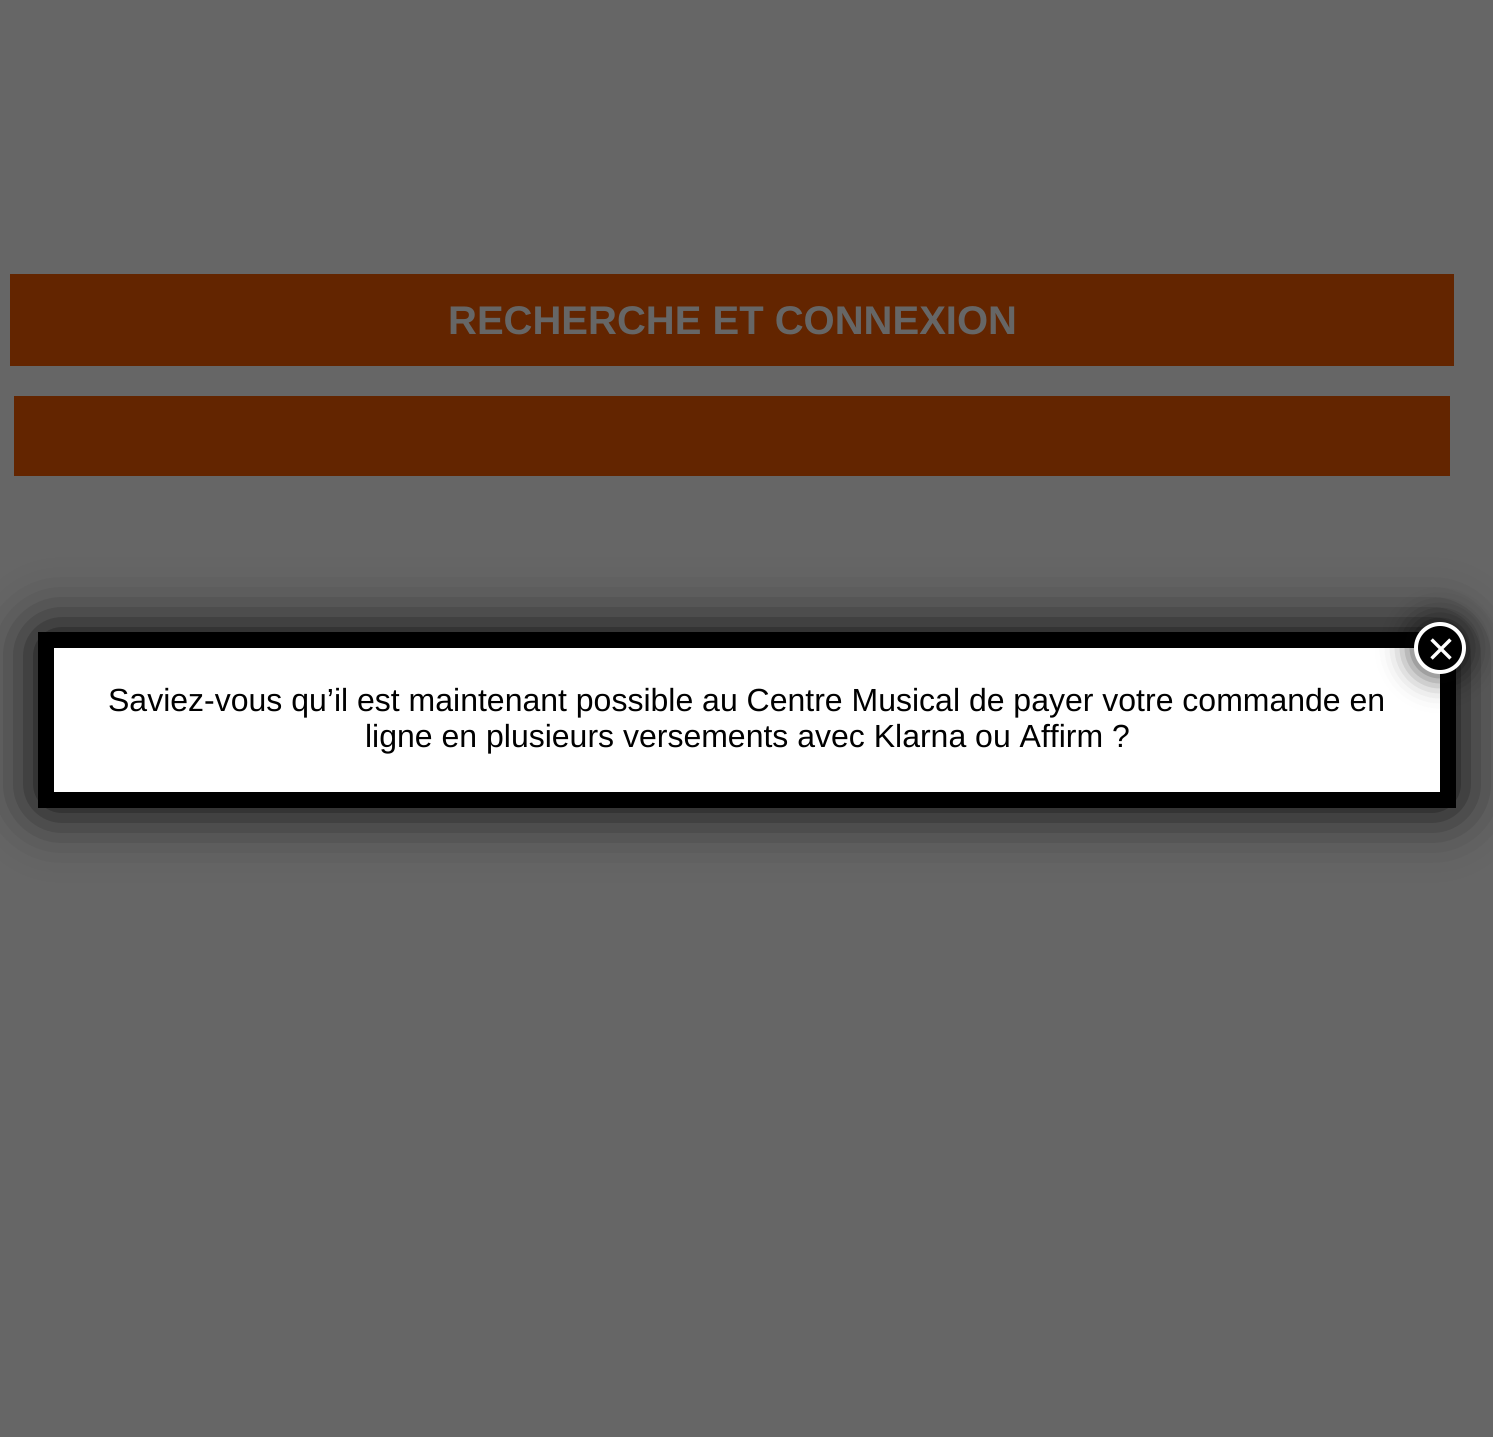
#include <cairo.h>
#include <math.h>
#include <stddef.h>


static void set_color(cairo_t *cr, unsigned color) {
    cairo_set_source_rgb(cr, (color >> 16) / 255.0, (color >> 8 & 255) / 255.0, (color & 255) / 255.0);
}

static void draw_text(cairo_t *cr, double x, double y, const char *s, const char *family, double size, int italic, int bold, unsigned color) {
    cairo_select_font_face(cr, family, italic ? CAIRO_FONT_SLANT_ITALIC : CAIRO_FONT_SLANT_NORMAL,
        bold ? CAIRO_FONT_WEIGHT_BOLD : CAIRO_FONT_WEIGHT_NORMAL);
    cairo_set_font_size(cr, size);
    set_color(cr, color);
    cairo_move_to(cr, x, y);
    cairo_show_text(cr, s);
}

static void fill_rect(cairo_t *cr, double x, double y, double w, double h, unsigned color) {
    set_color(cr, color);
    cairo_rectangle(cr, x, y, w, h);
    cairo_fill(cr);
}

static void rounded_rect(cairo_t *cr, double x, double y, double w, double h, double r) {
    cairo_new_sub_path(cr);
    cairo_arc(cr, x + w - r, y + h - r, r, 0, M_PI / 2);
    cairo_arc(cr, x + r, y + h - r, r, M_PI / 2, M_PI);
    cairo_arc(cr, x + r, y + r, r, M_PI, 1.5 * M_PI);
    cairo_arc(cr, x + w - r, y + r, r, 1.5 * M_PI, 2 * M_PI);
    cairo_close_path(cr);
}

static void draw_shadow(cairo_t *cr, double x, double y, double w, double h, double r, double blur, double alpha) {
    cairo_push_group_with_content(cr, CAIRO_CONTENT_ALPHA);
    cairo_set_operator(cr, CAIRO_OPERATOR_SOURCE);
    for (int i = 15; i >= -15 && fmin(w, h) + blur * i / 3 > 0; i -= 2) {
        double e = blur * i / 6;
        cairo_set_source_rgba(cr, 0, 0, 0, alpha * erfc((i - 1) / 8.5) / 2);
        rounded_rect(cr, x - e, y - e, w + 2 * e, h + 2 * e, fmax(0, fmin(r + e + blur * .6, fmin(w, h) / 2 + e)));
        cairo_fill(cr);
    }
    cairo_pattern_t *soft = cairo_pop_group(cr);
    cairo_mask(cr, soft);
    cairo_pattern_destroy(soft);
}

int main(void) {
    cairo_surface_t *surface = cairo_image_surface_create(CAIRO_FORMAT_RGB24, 1493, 1437);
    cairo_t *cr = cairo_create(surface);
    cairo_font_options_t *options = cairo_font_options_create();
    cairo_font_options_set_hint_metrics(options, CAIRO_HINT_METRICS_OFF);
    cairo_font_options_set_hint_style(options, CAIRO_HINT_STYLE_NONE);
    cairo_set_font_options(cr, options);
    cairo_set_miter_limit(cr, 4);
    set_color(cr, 0x666666);
    cairo_paint(cr);
    fill_rect(cr, 10, 274, 1444, 92, 0x632500);
    draw_text(cr, 448, 334, "RECHERCHE ET CONNEXION", "Liberation Sans", 40, 0, 1, 0x666666);
    fill_rect(cr, 14, 396, 1436, 80, 0x632500);
    set_color(cr, 0x020202);
    draw_shadow(cr, 38, 632, 1418, 176, 6, 30, 1);
    fill_rect(cr, 54, 648, 1386, 144, 0xFFFFFF);
    cairo_new_path(cr);
    cairo_move_to(cr, 46, 640);
    cairo_line_to(cr, 1448, 640);
    cairo_line_to(cr, 1448, 800);
    cairo_line_to(cr, 46, 800);
    cairo_close_path(cr);
    set_color(cr, 0x000000);
    cairo_set_line_width(cr, 16);
    cairo_stroke(cr);
    set_color(cr, 0x020202);
    draw_shadow(cr, 1412, 620, 56, 56, 28, 15, 0.75);
    set_color(cr, 0x000000);
    cairo_arc(cr, 1440, 648, 24, 0, 2 * M_PI);
    cairo_fill_preserve(cr);
    set_color(cr, 0xFFFFFF);
    cairo_set_line_width(cr, 4);
    cairo_stroke(cr);
    draw_text(cr, 1427, 665, "×", "Liberation Sans", 48, 0, 0, 0xFFFFFF);
    draw_text(cr, 108, 711, "Saviez-vous qu’il est maintenant possible au Centre Musical de payer votre commande en", "Liberation Sans", 32, 0, 0, 0x000000);
    draw_text(cr, 365, 747, "ligne en plusieurs versements avec Klarna ou Affirm ?", "Liberation Sans", 32, 0, 0, 0x000000);
    cairo_surface_write_to_png(surface, "output.png");
    cairo_font_options_destroy(options);
    cairo_destroy(cr);
    cairo_surface_destroy(surface);
    return 0;
}
